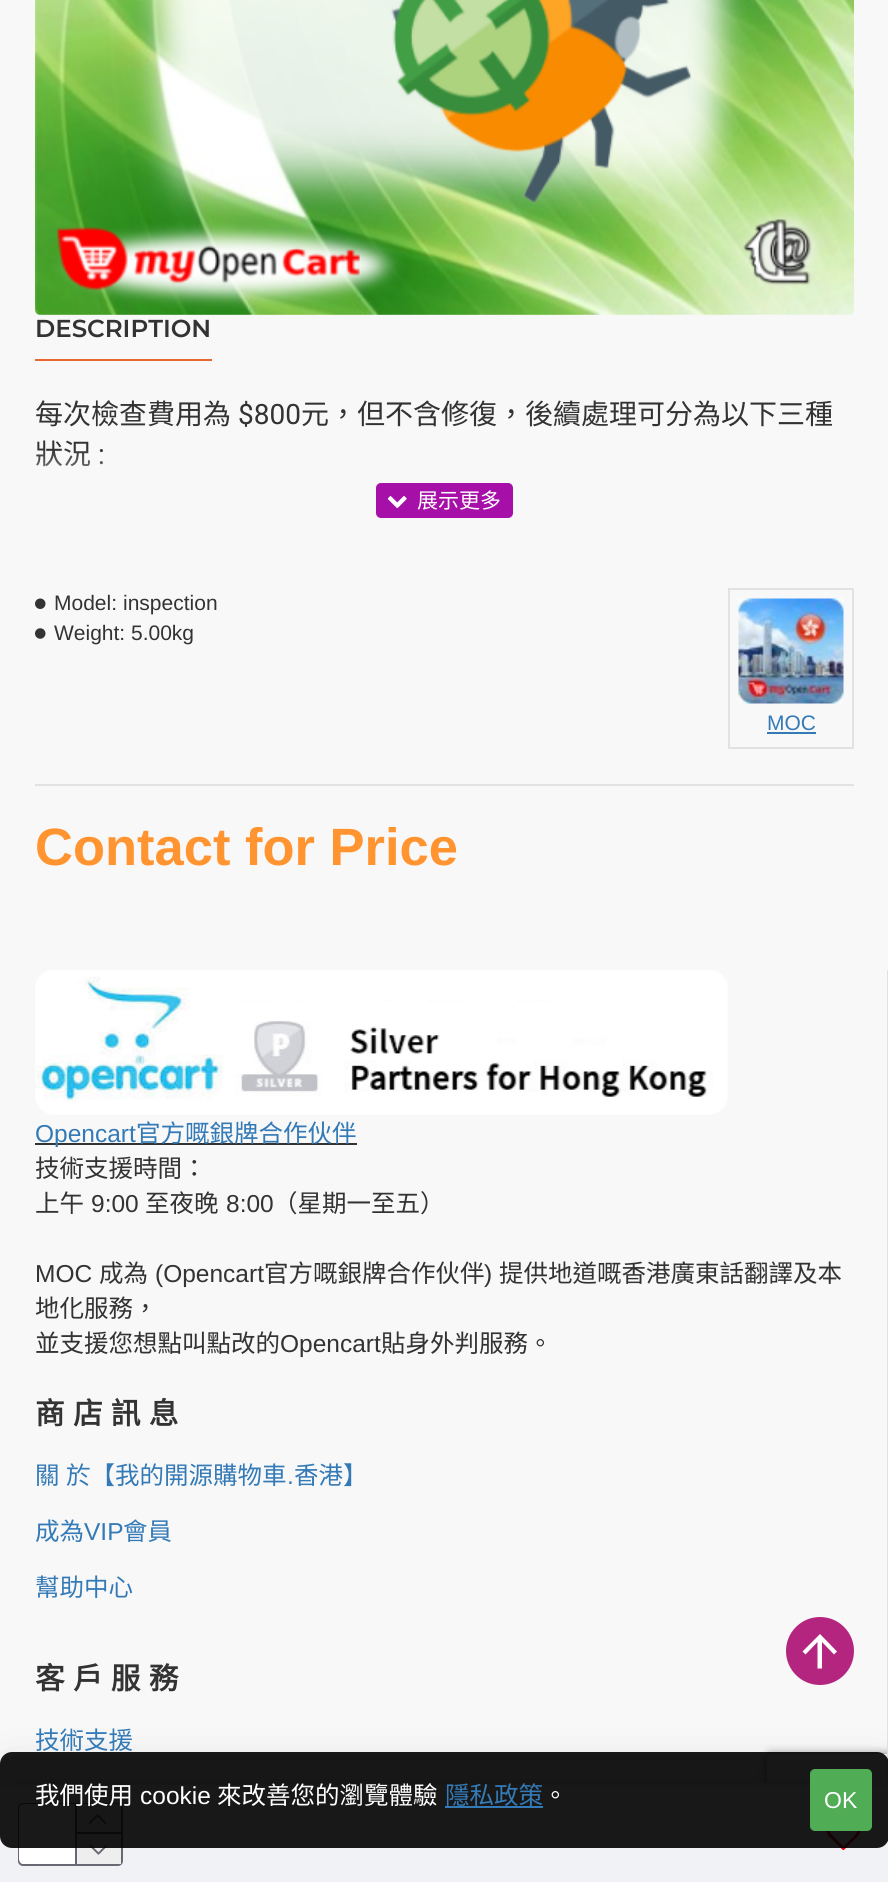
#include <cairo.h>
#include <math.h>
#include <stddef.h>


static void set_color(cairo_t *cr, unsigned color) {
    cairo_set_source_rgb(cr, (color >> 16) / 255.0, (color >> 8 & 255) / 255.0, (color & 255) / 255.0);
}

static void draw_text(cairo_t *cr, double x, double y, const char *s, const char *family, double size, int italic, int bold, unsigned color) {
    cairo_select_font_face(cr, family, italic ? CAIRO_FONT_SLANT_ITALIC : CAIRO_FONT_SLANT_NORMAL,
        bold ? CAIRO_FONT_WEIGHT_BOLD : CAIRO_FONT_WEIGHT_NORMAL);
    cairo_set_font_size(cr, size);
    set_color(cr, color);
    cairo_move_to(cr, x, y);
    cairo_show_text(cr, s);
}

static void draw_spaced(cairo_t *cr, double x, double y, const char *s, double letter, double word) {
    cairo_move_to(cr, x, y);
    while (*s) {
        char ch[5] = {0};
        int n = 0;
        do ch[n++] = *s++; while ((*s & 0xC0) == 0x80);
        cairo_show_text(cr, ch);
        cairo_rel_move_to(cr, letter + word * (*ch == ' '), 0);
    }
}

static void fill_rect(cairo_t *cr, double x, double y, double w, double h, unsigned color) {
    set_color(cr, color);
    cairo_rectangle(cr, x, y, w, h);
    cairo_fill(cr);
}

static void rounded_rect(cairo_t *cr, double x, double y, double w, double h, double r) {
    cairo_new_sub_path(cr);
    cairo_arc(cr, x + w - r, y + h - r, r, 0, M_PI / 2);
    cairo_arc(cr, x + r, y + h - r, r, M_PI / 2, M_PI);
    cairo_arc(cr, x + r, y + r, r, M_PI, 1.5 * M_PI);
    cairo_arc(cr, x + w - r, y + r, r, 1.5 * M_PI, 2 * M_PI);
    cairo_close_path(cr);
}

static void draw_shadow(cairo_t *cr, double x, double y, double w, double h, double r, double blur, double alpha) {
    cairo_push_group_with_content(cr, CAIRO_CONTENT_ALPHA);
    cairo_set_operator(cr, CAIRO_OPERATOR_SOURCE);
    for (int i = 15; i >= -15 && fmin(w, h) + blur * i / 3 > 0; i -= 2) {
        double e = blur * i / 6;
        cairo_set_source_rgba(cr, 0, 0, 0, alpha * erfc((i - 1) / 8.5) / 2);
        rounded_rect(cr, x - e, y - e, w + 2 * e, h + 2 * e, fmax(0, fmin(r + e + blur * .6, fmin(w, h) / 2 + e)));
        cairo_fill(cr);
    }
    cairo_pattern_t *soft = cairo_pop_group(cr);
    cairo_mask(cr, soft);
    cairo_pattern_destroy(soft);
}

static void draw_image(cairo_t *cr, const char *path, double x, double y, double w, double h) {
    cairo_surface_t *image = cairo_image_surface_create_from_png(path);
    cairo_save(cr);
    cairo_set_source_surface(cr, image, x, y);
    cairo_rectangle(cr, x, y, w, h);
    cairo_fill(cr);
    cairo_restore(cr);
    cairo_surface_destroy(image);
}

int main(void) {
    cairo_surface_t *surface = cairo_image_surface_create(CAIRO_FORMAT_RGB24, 888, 1882);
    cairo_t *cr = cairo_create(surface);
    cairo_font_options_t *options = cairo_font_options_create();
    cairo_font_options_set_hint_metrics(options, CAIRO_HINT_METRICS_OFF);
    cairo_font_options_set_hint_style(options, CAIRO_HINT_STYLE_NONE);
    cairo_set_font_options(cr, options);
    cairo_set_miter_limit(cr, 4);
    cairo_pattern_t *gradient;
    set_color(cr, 0xF8F8F8);
    cairo_paint(cr);
    draw_image(cr, "assets/img1.png", 35, 0, 819, 315);
    fill_rect(cr, 35, 359, 177, 2, 0xE96631);
    draw_text(cr, 35, 337, "DESCRIPTION", "Montserrat SemiBold", 24.5, 0, 0, 0x333333);
    draw_text(cr, 35, 424, "每次檢查費用為", "Noto Sans CJK HK", 28, 0, 0, 0x333333);
    draw_text(cr, 238, 424, "$800", "Roboto", 28, 0, 0, 0x333333);
    draw_text(cr, 301, 424, "元，但不含修復，後續處理可分為以下三種", "Noto Sans CJK HK", 28, 0, 0, 0x333333);
    draw_text(cr, 35, 464, "狀況", "Noto Sans CJK HK", 28, 0, 0, 0x333333);
    draw_text(cr, 98, 464, ":", "Roboto", 28, 0, 0, 0x333333);
    gradient = cairo_pattern_create_linear(445, 448, 445, 518);
    cairo_pattern_add_color_stop_rgba(gradient, 0, 0.973, 0.973, 0.973, 0);
    cairo_pattern_add_color_stop_rgba(gradient, 1, 0.973, 0.973, 0.973, 1);
    cairo_set_source(cr, gradient);
    cairo_pattern_destroy(gradient);
    cairo_rectangle(cr, 36, 450, 67, 17);
    cairo_fill(cr);
    set_color(cr, 0xA60FA8);
    rounded_rect(cr, 376, 483, 137, 35, 5);
    cairo_fill(cr);
    draw_image(cr, "assets/img2.png", 387, 496, 20, 13);
    draw_text(cr, 417, 508, "展示更多", "Noto Sans CJK HK", 21, 0, 0, 0xFFFFFF);
    fill_rect(cr, 35, 784, 819, 2, 0xE2E2E2);
    draw_image(cr, "assets/img3.png", 35, 598, 11, 11);
    draw_text(cr, 54, 610, "Model:", "Liberation Sans", 21, 0, 0, 0x333333);
    draw_text(cr, 123, 610, "inspection", "Liberation Sans", 21, 0, 0, 0x333333);
    draw_image(cr, "assets/img4.png", 35, 628, 11, 11);
    draw_text(cr, 54, 640, "Weight:", "Liberation Sans", 21, 0, 0, 0x333333);
    draw_text(cr, 131, 640, "5.00kg", "Liberation Sans", 21, 0, 0, 0x333333);
    cairo_rectangle(cr, 729, 589, 124, 159);
    set_color(cr, 0xE2E2E2);
    cairo_stroke(cr);
    draw_image(cr, "assets/img5.png", 738, 598, 106, 106);
    draw_text(cr, 767, 730, "MOC", "Liberation Sans", 21, 0, 0, 0x337AB7);
    fill_rect(cr, 767, 732, 49, 2, 0x337AB7);
    draw_text(cr, 35, 865, "Contact for Price", "Liberation Sans", 52.5, 0, 1, 0xFF9430);
    cairo_save(cr);
    cairo_set_fill_rule(cr, CAIRO_FILL_RULE_EVEN_ODD);
    cairo_new_path(cr);
    cairo_move_to(cr, 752, 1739);
    cairo_line_to(cr, 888, 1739);
    cairo_line_to(cr, 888, 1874);
    cairo_line_to(cr, 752, 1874);
    cairo_close_path(cr);
    cairo_move_to(cr, 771, 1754);
    cairo_line_to(cr, 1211, 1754);
    cairo_curve_to(cr, 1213, 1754, 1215, 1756, 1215, 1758);
    cairo_line_to(cr, 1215, 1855);
    cairo_curve_to(cr, 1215, 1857, 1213, 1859, 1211, 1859);
    cairo_line_to(cr, 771, 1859);
    cairo_curve_to(cr, 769, 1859, 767, 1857, 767, 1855);
    cairo_line_to(cr, 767, 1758);
    cairo_curve_to(cr, 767, 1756, 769, 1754, 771, 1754);
    cairo_close_path(cr);
    cairo_clip(cr);
    set_color(cr, 0x808080);
    draw_shadow(cr, 767, 1754, 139, 105, 4, 4.5, 1);
    cairo_restore(cr);
    fill_rect(cr, 887, 970, 1, 813, 0xE2E2E2);
    set_color(cr, 0x000000);
    draw_shadow(cr, 9, 1775, 871, 82, 0, 26, 0.15);
    fill_rect(cr, 0, 1785, 888, 97, 0xF0F2F5);
    fill_rect(cr, 0, 1783, 888, 2, 0xE2E2E2);
    rounded_rect(cr, 19, 1804, 103, 61, 4);
    set_color(cr, 0x696973);
    cairo_stroke(cr);
    set_color(cr, 0xFFFFFF);
    rounded_rect(cr, 19, 1804, 102, 60, 5);
    cairo_fill(cr);
    fill_rect(cr, 75, 1804, 2, 60, 0x696973);
    fill_rect(cr, 77, 1804, 44, 28, 0xEEEEEE);
    fill_rect(cr, 77, 1832, 44, 2, 0x696973);
    draw_image(cr, "assets/img6.png", 88, 1814, 19, 10);
    fill_rect(cr, 77, 1834, 44, 30, 0xEEEEEE);
    draw_image(cr, "assets/img7.png", 89, 1844, 19, 11);
    draw_image(cr, "assets/img8.png", 826, 1831, 35, 19);
    draw_image(cr, "assets/img9.png", 35, 970, 693, 145);
    fill_rect(cr, 35, 1143, 322, 2, 0x333333);
    draw_text(cr, 35, 1142, "Opencart", "Liberation Sans", 24.5, 0, 0, 0x337AB7);
    draw_text(cr, 136, 1142, "官方嘅銀牌合作伙伴", "Noto Sans CJK HK", 24.5, 0, 0, 0x337AB7);
    draw_text(cr, 35, 1177, "技術支援時間：", "Noto Sans CJK HK", 24.5, 0, 0, 0x333333);
    draw_text(cr, 35, 1212, "上午", "Noto Sans CJK HK", 24.5, 0, 0, 0x333333);
    draw_text(cr, 91, 1212, "9:00", "Liberation Sans", 24.5, 0, 0, 0x333333);
    draw_text(cr, 145, 1212, "至夜晚", "Noto Sans CJK HK", 24.5, 0, 0, 0x333333);
    draw_text(cr, 226, 1212, "8:00", "Liberation Sans", 24.5, 0, 0, 0x333333);
    draw_text(cr, 273, 1212, "（星期一至五）", "Noto Sans CJK HK", 24.5, 0, 0, 0x333333);
    draw_text(cr, 35, 1282, "MOC", "Liberation Sans", 24.5, 0, 0, 0x333333);
    draw_text(cr, 99, 1282, "成為", "Noto Sans CJK HK", 24.5, 0, 0, 0x333333);
    draw_text(cr, 155, 1282, "(Opencart", "Liberation Sans", 24.5, 0, 0, 0x333333);
    draw_text(cr, 264, 1282, "官方嘅銀牌合作伙伴", "Noto Sans CJK HK", 24.5, 0, 0, 0x333333);
    draw_text(cr, 484, 1282, ")", "Liberation Sans", 24.5, 0, 0, 0x333333);
    draw_text(cr, 499, 1282, "提供地道嘅香港廣東話翻譯及本", "Noto Sans CJK HK", 24.5, 0, 0, 0x333333);
    draw_text(cr, 35, 1317, "地化服務，", "Noto Sans CJK HK", 24.5, 0, 0, 0x333333);
    draw_text(cr, 35, 1352, "並支援您想點叫點改的", "Noto Sans CJK HK", 24.5, 0, 0, 0x333333);
    draw_text(cr, 280, 1352, "Opencart", "Liberation Sans", 24.5, 0, 0, 0x333333);
    draw_text(cr, 381, 1352, "貼身外判服務。", "Noto Sans CJK HK", 24.5, 0, 0, 0x333333);
    cairo_select_font_face(cr, "Noto Sans CJK HK", CAIRO_FONT_SLANT_NORMAL, CAIRO_FONT_WEIGHT_BOLD);
    cairo_set_font_size(cr, 29.75);
    draw_spaced(cr, 35, 1424, "商 店 訊 息", 0, 1.5);
    cairo_select_font_face(cr, "Noto Sans CJK HK", CAIRO_FONT_SLANT_NORMAL, CAIRO_FONT_WEIGHT_NORMAL);
    cairo_set_font_size(cr, 24.5);
    set_color(cr, 0x337AB7);
    draw_spaced(cr, 35, 1484, "關 於【我的開源購物車", 0, 1);
    draw_text(cr, 287, 1484, ".", "Liberation Sans", 24.5, 0, 0, 0x337AB7);
    draw_text(cr, 294, 1484, "香港】", "Noto Sans CJK HK", 24.5, 0, 0, 0x337AB7);
    draw_text(cr, 35, 1540, "成為", "Noto Sans CJK HK", 24.5, 0, 0, 0x337AB7);
    draw_text(cr, 84, 1540, "VIP", "Liberation Sans", 24.5, 0, 0, 0x337AB7);
    draw_text(cr, 123, 1540, "會員", "Noto Sans CJK HK", 24.5, 0, 0, 0x337AB7);
    draw_text(cr, 35, 1596, "幫助中心", "Noto Sans CJK HK", 24.5, 0, 0, 0x337AB7);
    cairo_select_font_face(cr, "Noto Sans CJK HK", CAIRO_FONT_SLANT_NORMAL, CAIRO_FONT_WEIGHT_BOLD);
    cairo_set_font_size(cr, 29.75);
    set_color(cr, 0x333333);
    draw_spaced(cr, 35, 1689, "客 戶 服 務", 0, 1.5);
    draw_text(cr, 35, 1749, "技術支援", "Noto Sans CJK HK", 24.5, 0, 0, 0x337AB7);
    set_color(cr, 0xB3257E);
    cairo_new_path(cr);
    cairo_arc(cr, 820, 1651, 34, 0, 2 * M_PI);
    cairo_fill(cr);
    set_color(cr, 0xFFFFFF);
    cairo_new_path(cr);
    cairo_move_to(cr, 802.5, 1651.5);
    cairo_line_to(cr, 820, 1634);
    cairo_line_to(cr, 837, 1651.5);
    cairo_line_to(cr, 834, 1654.5);
    cairo_line_to(cr, 822, 1642);
    cairo_line_to(cr, 822, 1668.5);
    cairo_line_to(cr, 817.5, 1668.5);
    cairo_line_to(cr, 817.5, 1642);
    cairo_line_to(cr, 805.5, 1654.5);
    cairo_close_path(cr);
    cairo_fill(cr);
    cairo_set_source_rgba(cr, 0, 0, 0, 0.9);
    rounded_rect(cr, 0, 1752, 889, 96, 12);
    cairo_fill(cr);
    draw_text(cr, 35, 1804, "我們使用", "Noto Sans CJK HK", 24.5, 0, 0, 0xFFFFFF);
    draw_text(cr, 140, 1804, "cookie", "Liberation Sans", 24.5, 0, 0, 0xFFFFFF);
    draw_text(cr, 217, 1804, "來改善您的瀏覽體驗", "Noto Sans CJK HK", 24.5, 0, 0, 0xFFFFFF);
    draw_text(cr, 445, 1804, "隱私政策", "Noto Sans CJK HK", 24.5, 0, 0, 0x337AB7);
    fill_rect(cr, 445, 1806, 98, 2, 0x337AB7);
    draw_text(cr, 543, 1804, "。", "Noto Sans CJK HK", 24.5, 0, 0, 0xFFFFFF);
    set_color(cr, 0x50AD55);
    rounded_rect(cr, 810, 1769, 62, 62, 5);
    cairo_fill(cr);
    draw_text(cr, 824, 1808, "OK", "Liberation Sans", 23, 0, 0, 0xFFFFFF);
    cairo_surface_write_to_png(surface, "output.png");
    cairo_font_options_destroy(options);
    cairo_destroy(cr);
    cairo_surface_destroy(surface);
    return 0;
}
